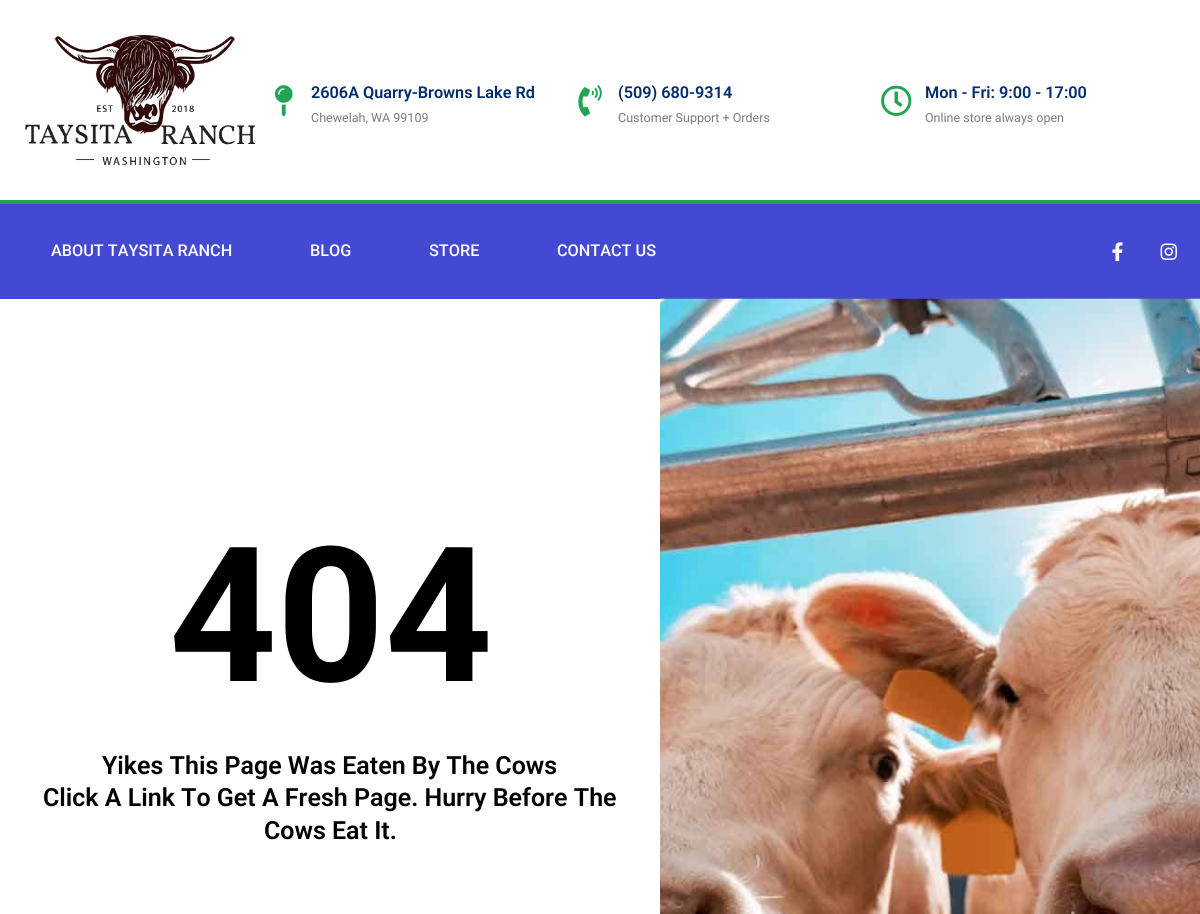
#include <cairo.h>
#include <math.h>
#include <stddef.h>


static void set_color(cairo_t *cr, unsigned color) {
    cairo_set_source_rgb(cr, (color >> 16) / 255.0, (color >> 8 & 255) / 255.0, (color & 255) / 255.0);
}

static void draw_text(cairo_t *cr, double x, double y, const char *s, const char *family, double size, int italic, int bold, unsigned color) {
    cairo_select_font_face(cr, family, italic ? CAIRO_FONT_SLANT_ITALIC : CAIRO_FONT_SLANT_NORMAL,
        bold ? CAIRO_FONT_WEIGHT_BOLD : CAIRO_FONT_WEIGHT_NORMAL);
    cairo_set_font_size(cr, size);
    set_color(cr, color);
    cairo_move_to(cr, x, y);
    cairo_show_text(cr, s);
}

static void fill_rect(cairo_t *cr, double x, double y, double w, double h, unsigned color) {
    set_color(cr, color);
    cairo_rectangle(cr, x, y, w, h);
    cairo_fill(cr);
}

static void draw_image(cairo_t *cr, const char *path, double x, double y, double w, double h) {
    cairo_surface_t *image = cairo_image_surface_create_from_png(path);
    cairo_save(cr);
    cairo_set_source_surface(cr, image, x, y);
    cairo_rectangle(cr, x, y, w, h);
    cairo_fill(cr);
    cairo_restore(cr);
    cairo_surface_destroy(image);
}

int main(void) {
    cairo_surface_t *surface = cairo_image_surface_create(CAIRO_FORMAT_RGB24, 1200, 914);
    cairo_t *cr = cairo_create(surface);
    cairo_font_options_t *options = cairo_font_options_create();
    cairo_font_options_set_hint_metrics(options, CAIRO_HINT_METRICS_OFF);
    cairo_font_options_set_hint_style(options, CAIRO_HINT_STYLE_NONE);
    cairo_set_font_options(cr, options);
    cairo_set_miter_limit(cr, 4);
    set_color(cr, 0xFFFFFF);
    cairo_paint(cr);
    draw_image(cr, "assets/img1.png", 25, 35, 230, 130);
    draw_image(cr, "assets/img2.png", 275, 85, 18, 32);
    draw_text(cr, 311, 98, "2606A Quarry-Browns Lake Rd", "Roboto SemiBold", 16.25, 0, 0, 0x012C6D);
    draw_text(cr, 311, 122, "Chewelah, WA 99109", "Roboto", 12.5, 0, 0, 0x7A7A7A);
    draw_image(cr, "assets/img3.png", 578, 85, 24, 32);
    draw_text(cr, 618, 98, "(509) 680-9314", "Roboto SemiBold", 16.25, 0, 0, 0x012C6D);
    draw_text(cr, 618, 122, "Customer Support + Orders", "Roboto", 12.5, 0, 0, 0x7A7A7A);
    draw_image(cr, "assets/img4.png", 881, 85, 31, 31);
    draw_text(cr, 925, 98, "Mon - Fri: 9:00 - 17:00", "Roboto SemiBold", 16.25, 0, 0, 0x012C6D);
    draw_text(cr, 925, 122, "Online store always open", "Roboto", 12.5, 0, 0, 0x7A7A7A);
    fill_rect(cr, 0, 204, 1200, 95, 0x4449D4);
    fill_rect(cr, 0, 200, 1200, 4, 0x23A455);
    draw_text(cr, 51, 256, "ABOUT TAYSITA RANCH", "Roboto Medium", 16.25, 0, 0, 0xFFFFFF);
    draw_text(cr, 310, 256, "BLOG", "Roboto Medium", 16.25, 0, 0, 0xFFFFFF);
    draw_text(cr, 429, 256, "STORE", "Roboto Medium", 16.25, 0, 0, 0xFFFFFF);
    draw_text(cr, 557, 256, "CONTACT US", "Roboto Medium", 16.25, 0, 0, 0xFFFFFF);
    draw_image(cr, "assets/img5.png", 1112, 242, 11, 20);
    draw_image(cr, "assets/img6.png", 1160, 243, 17, 17);
    draw_text(cr, 169, 681, "404", "Roboto", 188, 0, 1, 0x000000);
    draw_text(cr, 102, 774, "Yikes This Page Was Eaten By The Cows", "Roboto SemiBold", 25, 0, 0, 0x000000);
    draw_text(cr, 43, 806, "Click A Link To Get A Fresh Page. Hurry Before The", "Roboto SemiBold", 25, 0, 0, 0x000000);
    draw_text(cr, 264, 839, "Cows Eat It.", "Roboto SemiBold", 25, 0, 0, 0x000000);
    draw_image(cr, "assets/img7.png", 660, 298, 540, 616);
    cairo_surface_write_to_png(surface, "output.png");
    cairo_font_options_destroy(options);
    cairo_destroy(cr);
    cairo_surface_destroy(surface);
    return 0;
}
